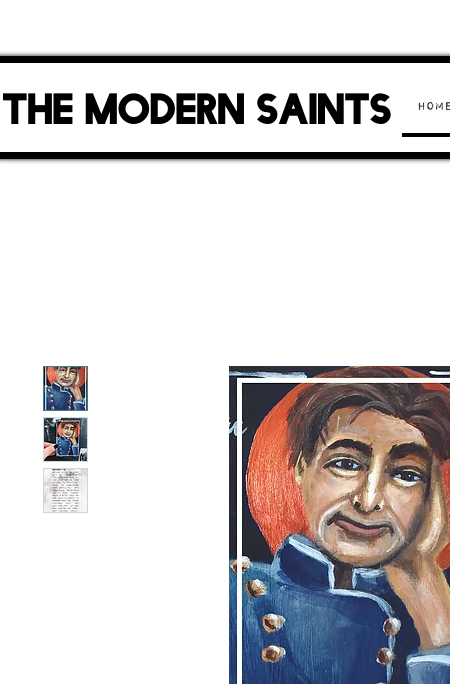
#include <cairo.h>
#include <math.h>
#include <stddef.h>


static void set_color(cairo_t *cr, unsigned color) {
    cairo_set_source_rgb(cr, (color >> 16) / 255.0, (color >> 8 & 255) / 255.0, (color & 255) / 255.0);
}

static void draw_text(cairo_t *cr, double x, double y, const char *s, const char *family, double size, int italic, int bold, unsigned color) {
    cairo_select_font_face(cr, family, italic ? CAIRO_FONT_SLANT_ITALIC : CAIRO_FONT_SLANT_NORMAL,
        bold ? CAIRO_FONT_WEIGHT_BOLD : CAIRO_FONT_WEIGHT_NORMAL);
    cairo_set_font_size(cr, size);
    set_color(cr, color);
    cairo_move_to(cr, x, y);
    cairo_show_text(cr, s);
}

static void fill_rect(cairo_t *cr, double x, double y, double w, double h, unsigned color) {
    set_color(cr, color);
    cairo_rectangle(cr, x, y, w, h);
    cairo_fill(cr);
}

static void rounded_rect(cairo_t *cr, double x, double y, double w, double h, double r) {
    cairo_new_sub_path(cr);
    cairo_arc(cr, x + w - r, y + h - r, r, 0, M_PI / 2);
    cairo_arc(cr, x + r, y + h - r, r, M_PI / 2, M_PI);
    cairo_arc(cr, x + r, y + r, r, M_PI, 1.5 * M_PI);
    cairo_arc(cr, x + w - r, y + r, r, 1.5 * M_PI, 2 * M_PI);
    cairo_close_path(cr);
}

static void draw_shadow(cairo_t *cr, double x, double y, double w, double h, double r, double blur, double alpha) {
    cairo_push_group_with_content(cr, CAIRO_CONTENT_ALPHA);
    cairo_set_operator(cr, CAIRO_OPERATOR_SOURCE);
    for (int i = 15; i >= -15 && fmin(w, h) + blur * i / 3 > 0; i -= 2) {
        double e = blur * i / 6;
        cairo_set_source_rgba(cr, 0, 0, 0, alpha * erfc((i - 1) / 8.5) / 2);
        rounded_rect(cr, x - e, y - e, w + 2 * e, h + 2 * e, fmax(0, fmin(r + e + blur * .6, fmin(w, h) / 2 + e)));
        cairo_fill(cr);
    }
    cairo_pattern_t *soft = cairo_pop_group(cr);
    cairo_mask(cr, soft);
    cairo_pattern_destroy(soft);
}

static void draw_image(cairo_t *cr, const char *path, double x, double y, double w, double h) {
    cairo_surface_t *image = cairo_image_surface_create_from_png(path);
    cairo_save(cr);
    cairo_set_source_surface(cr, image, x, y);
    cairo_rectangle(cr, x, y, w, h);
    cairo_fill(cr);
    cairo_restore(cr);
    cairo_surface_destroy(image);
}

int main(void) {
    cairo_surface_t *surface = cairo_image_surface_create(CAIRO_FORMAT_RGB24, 450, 684);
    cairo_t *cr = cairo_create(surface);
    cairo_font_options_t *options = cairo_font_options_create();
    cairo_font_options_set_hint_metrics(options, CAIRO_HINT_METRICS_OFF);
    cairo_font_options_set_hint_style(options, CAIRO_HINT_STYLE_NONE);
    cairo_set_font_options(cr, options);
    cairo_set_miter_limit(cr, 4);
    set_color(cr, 0xFFFFFF);
    cairo_paint(cr);
    cairo_save(cr);
    cairo_set_fill_rule(cr, CAIRO_FILL_RULE_EVEN_ODD);
    cairo_new_path(cr);
    cairo_move_to(cr, 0, 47);
    cairo_line_to(cr, 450, 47);
    cairo_line_to(cr, 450, 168);
    cairo_line_to(cr, 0, 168);
    cairo_close_path(cr);
    cairo_move_to(cr, 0, 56);
    cairo_line_to(cr, 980, 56);
    cairo_line_to(cr, 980, 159);
    cairo_line_to(cr, 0, 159);
    cairo_close_path(cr);
    cairo_clip(cr);
    set_color(cr, 0x000000);
    draw_shadow(cr, 0, 56, 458, 103, 0, 2.5, 1);
    cairo_restore(cr);
    fill_rect(cr, 0, 56, 450, 7, 0x000000);
    fill_rect(cr, 0, 152, 450, 7, 0x000000);
    draw_text(cr, 3, 124, "The Modern Saints", "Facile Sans", 39, 0, 1, 0x000000);
    fill_rect(cr, 402, 133, 48, 4, 0x000000);
    draw_text(cr, 417, 110, "Home", "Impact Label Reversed", 15, 0, 0, 0x000000);
    cairo_rectangle(cr, 43.5, 366.5, 44, 44);
    set_color(cr, 0x41817D);
    cairo_set_line_width(cr, 1);
    cairo_stroke(cr);
    draw_image(cr, "assets/img1.png", 44, 367, 43, 43);
    fill_rect(cr, 43, 417, 45, 45, 0xD4D4D4);
    draw_image(cr, "assets/img2.png", 44, 418, 43, 43);
    fill_rect(cr, 43, 468, 45, 45, 0xD4D4D4);
    draw_image(cr, "assets/img3.png", 44, 469, 43, 43);
    draw_image(cr, "assets/img4.png", 229, 366, 221, 318);
    cairo_surface_write_to_png(surface, "output.png");
    cairo_font_options_destroy(options);
    cairo_destroy(cr);
    cairo_surface_destroy(surface);
    return 0;
}
